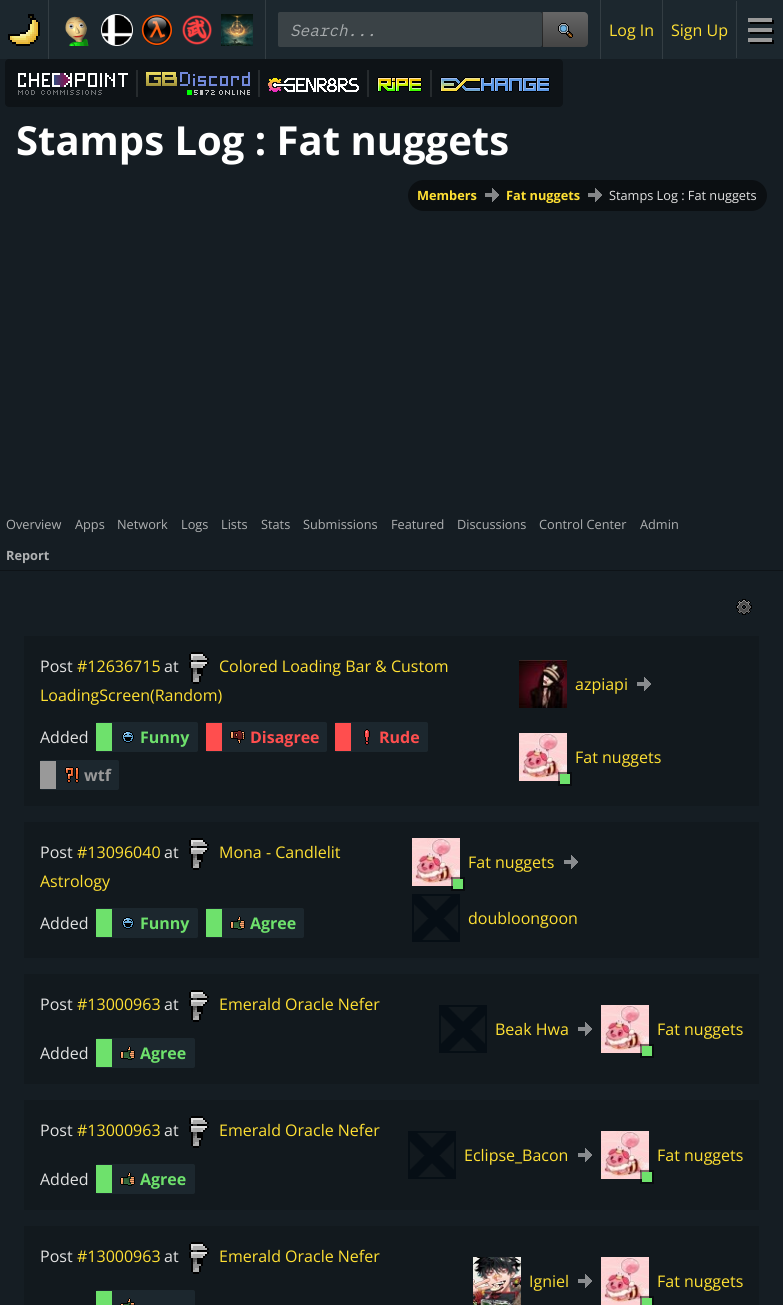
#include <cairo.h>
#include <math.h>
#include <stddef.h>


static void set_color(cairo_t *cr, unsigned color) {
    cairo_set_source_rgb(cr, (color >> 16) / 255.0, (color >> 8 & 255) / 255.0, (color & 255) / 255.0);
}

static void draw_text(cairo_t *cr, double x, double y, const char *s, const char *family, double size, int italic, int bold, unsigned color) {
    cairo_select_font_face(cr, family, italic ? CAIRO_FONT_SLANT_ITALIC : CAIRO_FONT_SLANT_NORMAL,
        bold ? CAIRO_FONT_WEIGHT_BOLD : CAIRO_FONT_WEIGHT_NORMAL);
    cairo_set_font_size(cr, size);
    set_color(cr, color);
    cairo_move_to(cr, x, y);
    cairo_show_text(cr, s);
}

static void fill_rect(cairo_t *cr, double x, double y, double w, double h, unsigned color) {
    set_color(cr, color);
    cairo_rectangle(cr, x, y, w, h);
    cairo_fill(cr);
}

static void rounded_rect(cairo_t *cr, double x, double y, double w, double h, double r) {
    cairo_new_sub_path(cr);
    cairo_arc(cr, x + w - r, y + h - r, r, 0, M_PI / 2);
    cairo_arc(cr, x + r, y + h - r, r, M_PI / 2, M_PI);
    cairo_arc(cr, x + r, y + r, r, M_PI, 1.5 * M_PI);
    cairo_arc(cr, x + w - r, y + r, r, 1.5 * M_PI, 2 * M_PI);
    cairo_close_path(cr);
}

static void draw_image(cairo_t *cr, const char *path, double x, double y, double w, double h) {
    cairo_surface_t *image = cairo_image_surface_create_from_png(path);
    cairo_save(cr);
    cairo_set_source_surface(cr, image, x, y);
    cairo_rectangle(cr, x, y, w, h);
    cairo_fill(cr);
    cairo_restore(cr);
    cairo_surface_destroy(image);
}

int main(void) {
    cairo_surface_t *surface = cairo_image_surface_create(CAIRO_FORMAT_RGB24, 783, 1305);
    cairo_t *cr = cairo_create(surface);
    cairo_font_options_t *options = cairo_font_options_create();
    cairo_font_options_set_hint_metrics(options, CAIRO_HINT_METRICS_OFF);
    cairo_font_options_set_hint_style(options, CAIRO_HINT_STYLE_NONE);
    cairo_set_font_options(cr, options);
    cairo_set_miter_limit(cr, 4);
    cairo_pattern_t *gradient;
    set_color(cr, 0x151D23);
    cairo_paint(cr);
    fill_rect(cr, 0, 0, 783, 59, 0x1C272E);
    draw_image(cr, "assets/img1.png", 8, 14, 32, 32);
    fill_rect(cr, 48, 0, 1, 59, 0x333D43);
    draw_image(cr, "assets/img2.png", 65, 16, 24, 30);
    draw_image(cr, "assets/img3.png", 101, 14, 32, 32);
    draw_image(cr, "assets/img4.png", 141, 14, 32, 32);
    draw_image(cr, "assets/img5.png", 182, 15, 30, 30);
    draw_image(cr, "assets/img6.png", 221, 14, 32, 32);
    fill_rect(cr, 265, 0, 1, 59, 0x333D43);
    set_color(cr, 0x3A4246);
    rounded_rect(cr, 278, 12, 264, 35, 2);
    cairo_fill(cr);
    draw_text(cr, 290, 36, "Search...", "IBM Plex Mono", 16, 1, 0, 0xA6AAAC);
    gradient = cairo_pattern_create_linear(566, 12, 566, 47);
    cairo_pattern_add_color_stop_rgba(gradient, 0, 0.4, 0.4, 0.4, 1);
    cairo_pattern_add_color_stop_rgba(gradient, 1, 0.267, 0.267, 0.267, 1);
    cairo_set_source(cr, gradient);
    cairo_pattern_destroy(gradient);
    cairo_new_path(cr);
    cairo_move_to(cr, 542, 12);
    cairo_line_to(cr, 584, 12);
    cairo_curve_to(cr, 586, 12, 588, 14, 588, 16);
    cairo_line_to(cr, 588, 43);
    cairo_curve_to(cr, 588, 45, 586, 47, 584, 47);
    cairo_line_to(cr, 542, 47);
    cairo_close_path(cr);
    cairo_fill(cr);
    gradient = cairo_pattern_create_linear(566, 12, 566, 47);
    cairo_pattern_add_color_stop_rgba(gradient, 0, 0.2, 0.2, 0.2, 1);
    cairo_pattern_add_color_stop_rgba(gradient, 1, 0.133, 0.133, 0.133, 1);
    cairo_set_source(cr, gradient);
    cairo_pattern_destroy(gradient);
    cairo_rectangle(cr, 542, 12, 1, 35);
    cairo_fill(cr);
    draw_image(cr, "assets/img7.png", 558, 23, 15, 15);
    fill_rect(cr, 600, 0, 1, 59, 0x333D43);
    draw_text(cr, 609, 36, "Log In", "Open Sans", 16, 0, 0, 0xFFE033);
    fill_rect(cr, 662, 0, 1, 59, 0x333D43);
    draw_text(cr, 671, 36, "Sign Up", "Open Sans", 16, 0, 0, 0xFFE033);
    fill_rect(cr, 736, 1, 1, 57, 0x333D43);
    draw_image(cr, "assets/img8.png", 748, 18, 26, 26);
    draw_text(cr, 16, 155, "Stamps Log : Fat nuggets", "Open Sans", 40, 0, 1, 0xFFFFFF);
    set_color(cr, 0x0B0F12);
    rounded_rect(cr, 408, 180, 359, 31, 15.5);
    cairo_fill(cr);
    draw_text(cr, 417, 200, "Members", "Open Sans", 12.75, 0, 1, 0xFFE033);
    draw_image(cr, "assets/img9.png", 485, 188, 14, 14);
    draw_text(cr, 506, 200, "Fat nuggets", "Open Sans", 12.75, 0, 1, 0xFFE033);
    draw_image(cr, "assets/img9.png", 588, 188, 14, 14);
    draw_text(cr, 609, 200, "Stamps Log : Fat nuggets", "Open Sans", 12.75, 0, 0, 0xE2E2E2);
    fill_rect(cr, 0, 570, 783, 1, 0x0E1317);
    draw_text(cr, 6, 529, "Overview", "Open Sans", 12.75, 0, 0, 0xAFB1B2);
    draw_text(cr, 75, 529, "Apps", "Open Sans", 12.75, 0, 0, 0xAFB1B2);
    draw_text(cr, 117, 529, "Network", "Open Sans", 12.75, 0, 0, 0xAFB1B2);
    draw_text(cr, 181, 529, "Logs", "Open Sans", 12.75, 0, 0, 0xAFB1B2);
    draw_text(cr, 221, 529, "Lists", "Open Sans", 12.75, 0, 0, 0xAFB1B2);
    draw_text(cr, 261, 529, "Stats", "Open Sans", 12.75, 0, 0, 0xAFB1B2);
    draw_text(cr, 303, 529, "Submissions", "Open Sans", 12.75, 0, 0, 0xAFB1B2);
    draw_text(cr, 391, 529, "Featured", "Open Sans", 12.75, 0, 0, 0xAFB1B2);
    draw_text(cr, 457, 529, "Discussions", "Open Sans", 12.75, 0, 0, 0xAFB1B2);
    draw_text(cr, 539, 529, "Control Center", "Open Sans", 12.75, 0, 0, 0xAFB1B2);
    draw_text(cr, 640, 529, "Admin", "Open Sans", 12.75, 0, 0, 0xAFB1B2);
    draw_text(cr, 6, 560, "Report", "Open Sans", 12.75, 0, 1, 0xAFB1B2);
    draw_image(cr, "assets/img10.png", 736, 599, 16, 16);
    fill_rect(cr, 24, 636, 735, 170, 0x12191E);
    draw_text(cr, 40, 672, "Post", "Open Sans", 16, 0, 0, 0xE2E2E2);
    draw_text(cr, 77, 672, "#12636715", "Open Sans", 16, 0, 0, 0xFFE033);
    draw_text(cr, 164, 672, "at", "Open Sans", 16, 0, 0, 0xE2E2E2);
    draw_image(cr, "assets/img11.png", 189, 652, 20, 32);
    draw_text(cr, 219, 672, "Colored Loading Bar & Custom", "Open Sans", 16, 0, 0, 0xFFE033);
    draw_text(cr, 40, 701, "LoadingScreen(Random)", "Open Sans", 16, 0, 0, 0xFFE033);
    draw_text(cr, 40, 743, "Added", "Open Sans", 16, 0, 0, 0xE2E2E2);
    set_color(cr, 0x1C272E);
    rounded_rect(cr, 96, 722, 102, 30, 2);
    cairo_fill(cr);
    fill_rect(cr, 96, 723, 16, 28, 0x6EE16C);
    draw_image(cr, "assets/img12.png", 122, 731, 12, 12);
    draw_text(cr, 140, 743, "Funny", "Open Sans", 16, 0, 1, 0x6EE16C);
    set_color(cr, 0x1C272E);
    rounded_rect(cr, 206, 722, 121, 30, 2);
    cairo_fill(cr);
    fill_rect(cr, 206, 723, 16, 28, 0xFF4E4E);
    draw_image(cr, "assets/img13.png", 230, 730, 15, 14);
    draw_text(cr, 250, 743, "Disagree", "Open Sans", 16, 0, 1, 0xFF4E4E);
    set_color(cr, 0x1C272E);
    rounded_rect(cr, 335, 722, 93, 30, 2);
    cairo_fill(cr);
    fill_rect(cr, 335, 723, 16, 28, 0xFF4E4E);
    draw_image(cr, "assets/img14.png", 364, 729, 6, 16);
    draw_text(cr, 379, 743, "Rude", "Open Sans", 16, 0, 1, 0xFF4E4E);
    set_color(cr, 0x1C272E);
    rounded_rect(cr, 40, 760, 79, 30, 2);
    cairo_fill(cr);
    fill_rect(cr, 40, 761, 16, 28, 0x999999);
    draw_image(cr, "assets/img15.png", 65, 767, 14, 16);
    draw_text(cr, 84, 781, "wtf", "Open Sans", 16, 0, 1, 0x999999);
    draw_image(cr, "assets/img16.png", 519, 660, 48, 48);
    draw_text(cr, 575, 690, "azpiapi", "Open Sans", 16, 0, 0, 0xFFE033);
    draw_image(cr, "assets/img17.png", 637, 677, 14, 14);
    draw_image(cr, "assets/img18.png", 519, 733, 48, 48);
    cairo_rectangle(cr, 559, 773, 12, 12);
    cairo_set_source_rgba(cr, 0, 0, 0, 0.5);
    cairo_stroke(cr);
    fill_rect(cr, 560, 774, 10, 10, 0x6EE16C);
    draw_text(cr, 575, 763, "Fat nuggets", "Open Sans", 16, 0, 0, 0xFFE033);
    fill_rect(cr, 24, 822, 735, 136, 0x12191E);
    draw_text(cr, 40, 858, "Post", "Open Sans", 16, 0, 0, 0xE2E2E2);
    draw_text(cr, 77, 858, "#13096040", "Open Sans", 16, 0, 0, 0xFFE033);
    draw_text(cr, 164, 858, "at", "Open Sans", 16, 0, 0, 0xE2E2E2);
    draw_image(cr, "assets/img11.png", 189, 838, 20, 32);
    draw_text(cr, 219, 858, "Mona - Candlelit", "Open Sans", 16, 0, 0, 0xFFE033);
    draw_text(cr, 40, 887, "Astrology", "Open Sans", 16, 0, 0, 0xFFE033);
    draw_text(cr, 40, 929, "Added", "Open Sans", 16, 0, 0, 0xE2E2E2);
    set_color(cr, 0x1C272E);
    rounded_rect(cr, 96, 908, 102, 30, 2);
    cairo_fill(cr);
    fill_rect(cr, 96, 909, 16, 28, 0x6EE16C);
    draw_image(cr, "assets/img12.png", 122, 917, 12, 12);
    draw_text(cr, 140, 929, "Funny", "Open Sans", 16, 0, 1, 0x6EE16C);
    set_color(cr, 0x1C272E);
    rounded_rect(cr, 206, 908, 98, 30, 2);
    cairo_fill(cr);
    fill_rect(cr, 206, 909, 16, 28, 0x6EE16C);
    draw_image(cr, "assets/img19.png", 230, 916, 15, 14);
    draw_text(cr, 250, 929, "Agree", "Open Sans", 16, 0, 1, 0x6EE16C);
    draw_image(cr, "assets/img20.png", 412, 838, 48, 48);
    cairo_rectangle(cr, 452, 878, 12, 12);
    cairo_set_source_rgba(cr, 0, 0, 0, 0.5);
    cairo_stroke(cr);
    fill_rect(cr, 453, 879, 10, 10, 0x6EE16C);
    draw_text(cr, 468, 868, "Fat nuggets", "Open Sans", 16, 0, 0, 0xFFE033);
    draw_image(cr, "assets/img17.png", 564, 855, 14, 14);
    draw_image(cr, "assets/img21.png", 412, 894, 48, 48);
    draw_text(cr, 468, 924, "doubloongoon", "Open Sans", 16, 0, 0, 0xFFE033);
    fill_rect(cr, 24, 974, 735, 110, 0x12191E);
    draw_text(cr, 40, 1010, "Post", "Open Sans", 16, 0, 0, 0xE2E2E2);
    draw_text(cr, 77, 1010, "#13000963", "Open Sans", 16, 0, 0, 0xFFE033);
    draw_text(cr, 164, 1010, "at", "Open Sans", 16, 0, 0, 0xE2E2E2);
    draw_image(cr, "assets/img11.png", 189, 990, 20, 32);
    draw_text(cr, 219, 1010, "Emerald Oracle Nefer", "Open Sans", 16, 0, 0, 0xFFE033);
    draw_text(cr, 40, 1059, "Added", "Open Sans", 16, 0, 0, 0xE2E2E2);
    set_color(cr, 0x1C272E);
    rounded_rect(cr, 96, 1038, 99, 30, 2);
    cairo_fill(cr);
    fill_rect(cr, 96, 1039, 16, 28, 0x6EE16C);
    draw_image(cr, "assets/img19.png", 120, 1046, 15, 14);
    draw_text(cr, 140, 1059, "Agree", "Open Sans", 16, 0, 1, 0x6EE16C);
    draw_image(cr, "assets/img22.png", 439, 1005, 48, 48);
    draw_text(cr, 495, 1035, "Beak Hwa", "Open Sans", 16, 0, 0, 0xFFE033);
    draw_image(cr, "assets/img17.png", 578, 1022, 14, 14);
    draw_image(cr, "assets/img18.png", 601, 1005, 48, 48);
    cairo_rectangle(cr, 641, 1045, 12, 12);
    cairo_set_source_rgba(cr, 0, 0, 0, 0.5);
    cairo_stroke(cr);
    fill_rect(cr, 642, 1046, 10, 10, 0x6EE16C);
    draw_text(cr, 657, 1035, "Fat nuggets", "Open Sans", 16, 0, 0, 0xFFE033);
    fill_rect(cr, 24, 1100, 735, 110, 0x12191E);
    draw_text(cr, 40, 1136, "Post", "Open Sans", 16, 0, 0, 0xE2E2E2);
    draw_text(cr, 77, 1136, "#13000963", "Open Sans", 16, 0, 0, 0xFFE033);
    draw_text(cr, 164, 1136, "at", "Open Sans", 16, 0, 0, 0xE2E2E2);
    draw_image(cr, "assets/img11.png", 189, 1116, 20, 32);
    draw_text(cr, 219, 1136, "Emerald Oracle Nefer", "Open Sans", 16, 0, 0, 0xFFE033);
    draw_text(cr, 40, 1185, "Added", "Open Sans", 16, 0, 0, 0xE2E2E2);
    set_color(cr, 0x1C272E);
    rounded_rect(cr, 96, 1164, 99, 30, 2);
    cairo_fill(cr);
    fill_rect(cr, 96, 1165, 16, 28, 0x6EE16C);
    draw_image(cr, "assets/img19.png", 120, 1172, 15, 14);
    draw_text(cr, 140, 1185, "Agree", "Open Sans", 16, 0, 1, 0x6EE16C);
    draw_image(cr, "assets/img23.png", 408, 1131, 48, 48);
    draw_text(cr, 464, 1161, "Eclipse_Bacon", "Open Sans", 16, 0, 0, 0xFFE033);
    draw_image(cr, "assets/img17.png", 578, 1148, 14, 14);
    draw_image(cr, "assets/img24.png", 601, 1131, 48, 48);
    cairo_rectangle(cr, 641, 1171, 12, 12);
    cairo_set_source_rgba(cr, 0, 0, 0, 0.5);
    cairo_stroke(cr);
    fill_rect(cr, 642, 1172, 10, 10, 0x6EE16C);
    draw_text(cr, 657, 1161, "Fat nuggets", "Open Sans", 16, 0, 0, 0xFFE033);
    fill_rect(cr, 24, 1226, 735, 79, 0x12191E);
    draw_text(cr, 40, 1262, "Post", "Open Sans", 16, 0, 0, 0xE2E2E2);
    draw_text(cr, 77, 1262, "#13000963", "Open Sans", 16, 0, 0, 0xFFE033);
    draw_text(cr, 164, 1262, "at", "Open Sans", 16, 0, 0, 0xE2E2E2);
    draw_image(cr, "assets/img11.png", 189, 1242, 20, 32);
    draw_text(cr, 219, 1262, "Emerald Oracle Nefer", "Open Sans", 16, 0, 0, 0xFFE033);
    set_color(cr, 0x1C272E);
    rounded_rect(cr, 96, 1290, 99, 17, 2);
    cairo_fill(cr);
    fill_rect(cr, 96, 1291, 16, 14, 0x6EE16C);
    draw_image(cr, "assets/img25.png", 120, 1298, 15, 7);
    draw_image(cr, "assets/img26.png", 473, 1257, 48, 48);
    draw_text(cr, 529, 1287, "Igniel", "Open Sans", 16, 0, 0, 0xFFE033);
    draw_image(cr, "assets/img17.png", 578, 1274, 14, 14);
    draw_image(cr, "assets/img18.png", 601, 1257, 48, 48);
    cairo_rectangle(cr, 641, 1297, 12, 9);
    cairo_set_source_rgba(cr, 0, 0, 0, 0.5);
    cairo_stroke(cr);
    fill_rect(cr, 642, 1298, 10, 7, 0x6EE16C);
    draw_text(cr, 657, 1287, "Fat nuggets", "Open Sans", 16, 0, 0, 0xFFE033);
    set_color(cr, 0x0E1317);
    rounded_rect(cr, 5, 59, 558, 48, 4);
    cairo_fill(cr);
    draw_image(cr, "assets/img27.png", 18, 73, 110, 22);
    fill_rect(cr, 136, 70, 2, 27, 0x262B2E);
    draw_image(cr, "assets/img28.png", 146, 72, 104, 14);
    fill_rect(cr, 187, 90, 5, 5, 0x00FF03);
    draw_image(cr, "assets/img29.png", 194, 90, 4, 5);
    fill_rect(cr, 200, 90, 3, 5, 0xC3C4C5);
    draw_image(cr, "assets/img30.png", 205, 90, 4, 5);
    draw_image(cr, "assets/img31.png", 211, 90, 4, 5);
    draw_image(cr, "assets/img32.png", 219, 90, 31, 5);
    fill_rect(cr, 258, 70, 2, 27, 0x262B2E);
    draw_image(cr, "assets/img33.png", 268, 78, 91, 14);
    fill_rect(cr, 367, 70, 2, 27, 0x262B2E);
    draw_image(cr, "assets/img34.png", 377, 77, 45, 15);
    fill_rect(cr, 430, 70, 2, 27, 0x262B2E);
    draw_image(cr, "assets/img35.png", 440, 77, 110, 15);
    cairo_surface_write_to_png(surface, "output.png");
    cairo_font_options_destroy(options);
    cairo_destroy(cr);
    cairo_surface_destroy(surface);
    return 0;
}
